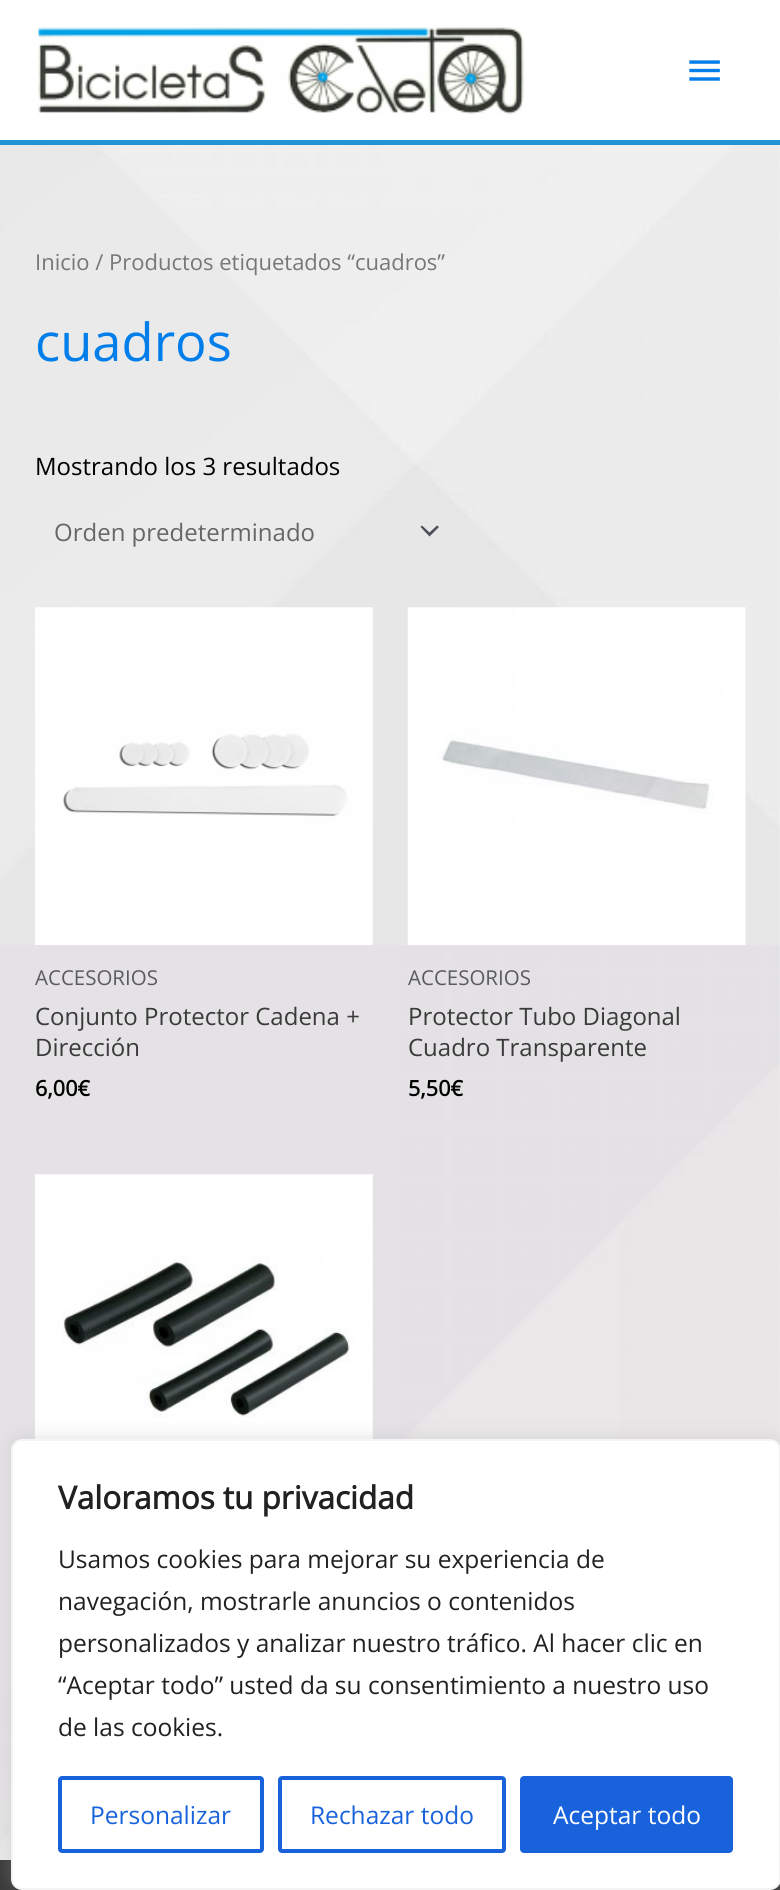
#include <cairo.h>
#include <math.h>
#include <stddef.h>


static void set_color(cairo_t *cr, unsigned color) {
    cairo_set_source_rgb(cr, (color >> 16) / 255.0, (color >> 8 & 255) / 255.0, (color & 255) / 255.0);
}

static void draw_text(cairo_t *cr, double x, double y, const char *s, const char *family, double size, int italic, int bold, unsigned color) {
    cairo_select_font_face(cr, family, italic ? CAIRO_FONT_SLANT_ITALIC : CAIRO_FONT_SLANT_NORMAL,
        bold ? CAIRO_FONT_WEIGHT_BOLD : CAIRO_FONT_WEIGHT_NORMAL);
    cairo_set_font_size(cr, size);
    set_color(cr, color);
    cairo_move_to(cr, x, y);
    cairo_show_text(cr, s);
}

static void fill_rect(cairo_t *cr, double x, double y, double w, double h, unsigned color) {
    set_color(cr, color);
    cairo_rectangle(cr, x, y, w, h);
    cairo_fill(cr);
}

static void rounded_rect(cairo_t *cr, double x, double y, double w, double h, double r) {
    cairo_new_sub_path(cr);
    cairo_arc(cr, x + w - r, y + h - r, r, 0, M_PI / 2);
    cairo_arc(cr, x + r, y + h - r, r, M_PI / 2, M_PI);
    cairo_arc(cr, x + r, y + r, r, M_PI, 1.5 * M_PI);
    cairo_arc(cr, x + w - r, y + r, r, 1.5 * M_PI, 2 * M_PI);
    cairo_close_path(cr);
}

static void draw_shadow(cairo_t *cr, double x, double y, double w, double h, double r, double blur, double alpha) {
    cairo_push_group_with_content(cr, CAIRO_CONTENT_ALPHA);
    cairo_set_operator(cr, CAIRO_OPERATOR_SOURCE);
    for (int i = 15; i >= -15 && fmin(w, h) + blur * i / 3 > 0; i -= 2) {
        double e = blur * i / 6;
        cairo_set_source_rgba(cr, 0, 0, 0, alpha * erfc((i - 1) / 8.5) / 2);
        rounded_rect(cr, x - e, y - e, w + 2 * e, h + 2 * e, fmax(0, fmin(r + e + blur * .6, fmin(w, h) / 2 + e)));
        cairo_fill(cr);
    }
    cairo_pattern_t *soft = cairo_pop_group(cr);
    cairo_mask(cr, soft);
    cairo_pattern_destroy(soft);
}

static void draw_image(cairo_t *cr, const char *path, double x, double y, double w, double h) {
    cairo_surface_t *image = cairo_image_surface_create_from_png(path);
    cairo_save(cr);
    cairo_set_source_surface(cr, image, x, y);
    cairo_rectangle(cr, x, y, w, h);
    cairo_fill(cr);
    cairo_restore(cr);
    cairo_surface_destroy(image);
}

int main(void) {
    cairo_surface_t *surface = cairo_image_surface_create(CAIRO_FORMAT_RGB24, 780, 1890);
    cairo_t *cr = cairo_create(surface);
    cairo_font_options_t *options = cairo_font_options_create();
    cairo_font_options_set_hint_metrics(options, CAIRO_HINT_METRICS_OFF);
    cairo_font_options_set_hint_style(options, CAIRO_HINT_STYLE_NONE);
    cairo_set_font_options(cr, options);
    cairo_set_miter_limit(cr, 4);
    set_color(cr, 0xFFFFFF);
    cairo_paint(cr);
    draw_image(cr, "assets/img1.png", 0, 145, 780, 1715);
    fill_rect(cr, 0, 140, 780, 5, 0x2294D6);
    draw_image(cr, "assets/img2.png", 37, 27, 488, 88);
    draw_image(cr, "assets/img3.png", 689, 60, 31, 21);
    draw_text(cr, 35, 270, "Inicio / Productos etiquetados “cuadros”", "Open Sans", 22, 0, 0, 0x777777);
    draw_text(cr, 35, 361, "cuadros", "Open Sans", 52.5, 0, 0, 0x027EEA);
    draw_text(cr, 35, 475, "Mostrando los 3 resultados", "Open Sans", 24, 0, 0, 0x000000);
    set_color(cr, 0x4B4F58);
    cairo_new_path(cr);
    cairo_move_to(cr, 420.5, 527);
    cairo_line_to(cr, 429.5, 536.5);
    cairo_line_to(cr, 439, 527);
    cairo_line_to(cr, 437, 525.5);
    cairo_line_to(cr, 429.5, 532.5);
    cairo_line_to(cr, 422, 525.5);
    cairo_close_path(cr);
    cairo_fill(cr);
    draw_text(cr, 54, 541, "Orden predeterminado", "Open Sans", 24, 0, 0, 0x666666);
    draw_image(cr, "assets/img4.png", 35, 607, 338, 338);
    draw_text(cr, 35, 985, "ACCESORIOS", "Open Sans", 20.5, 0, 0, 0x5B5A5C);
    draw_text(cr, 35, 1025, "Conjunto Protector Cadena +", "Open Sans", 24, 0, 0, 0x3A3A3A);
    draw_text(cr, 35, 1056, "Dirección", "Open Sans", 24, 0, 0, 0x3A3A3A);
    draw_text(cr, 35, 1096, "6,00€", "Open Sans", 21.5, 0, 1, 0x000000);
    draw_image(cr, "assets/img5.png", 407, 607, 339, 338);
    draw_text(cr, 408, 985, "ACCESORIOS", "Open Sans", 20.5, 0, 0, 0x5B5A5C);
    draw_text(cr, 408, 1025, "Protector Tubo Diagonal", "Open Sans", 24, 0, 0, 0x3A3A3A);
    draw_text(cr, 408, 1056, "Cuadro Transparente", "Open Sans", 24, 0, 0, 0x3A3A3A);
    draw_text(cr, 408, 1096, "5,50€", "Open Sans", 21.5, 0, 1, 0x000000);
    draw_image(cr, "assets/img6.png", 35, 1174, 338, 265);
    fill_rect(cr, 0, 1860, 780, 30, 0x3A3A3A);
    set_color(cr, 0xACABAB);
    draw_shadow(cr, 11, 1437, 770, 451, 11, 9, 0.3);
    set_color(cr, 0xFFFFFF);
    rounded_rect(cr, 12, 1440, 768, 449, 10);
    cairo_fill_preserve(cr);
    set_color(cr, 0xF4F4F4);
    cairo_stroke(cr);
    draw_text(cr, 58, 1509, "Valoramos tu privacidad", "Open Sans", 31.5, 0, 1, 0x212121);
    draw_text(cr, 58, 1568, "Usamos cookies para mejorar su experiencia de", "Open Sans", 24.5, 0, 0, 0x212121);
    draw_text(cr, 58, 1610, "navegación, mostrarle anuncios o contenidos", "Open Sans", 24.5, 0, 0, 0x212121);
    draw_text(cr, 58, 1652, "personalizados y analizar nuestro tráfico. Al hacer clic en", "Open Sans", 24.5, 0, 0, 0x212121);
    draw_text(cr, 58, 1694, "“Aceptar todo” usted da su consentimiento a nuestro uso", "Open Sans", 24.5, 0, 0, 0x212121);
    draw_text(cr, 58, 1736, "de las cookies.", "Open Sans", 24.5, 0, 0, 0x212121);
    rounded_rect(cr, 60, 1778, 202, 73, 2);
    set_color(cr, 0x1863DC);
    cairo_set_line_width(cr, 4);
    cairo_stroke(cr);
    draw_text(cr, 90, 1824, "Personalizar", "Open Sans", 24.5, 0, 0, 0x1863DC);
    rounded_rect(cr, 280, 1778, 224, 73, 2);
    cairo_stroke(cr);
    draw_text(cr, 310, 1824, "Rechazar todo", "Open Sans", 24.5, 0, 0, 0x1863DC);
    rounded_rect(cr, 522, 1778, 209, 73, 2);
    cairo_fill_preserve(cr);
    cairo_stroke(cr);
    draw_text(cr, 553, 1824, "Aceptar todo", "Open Sans", 24.5, 0, 0, 0xFFFFFF);
    cairo_surface_write_to_png(surface, "output.png");
    cairo_font_options_destroy(options);
    cairo_destroy(cr);
    cairo_surface_destroy(surface);
    return 0;
}
